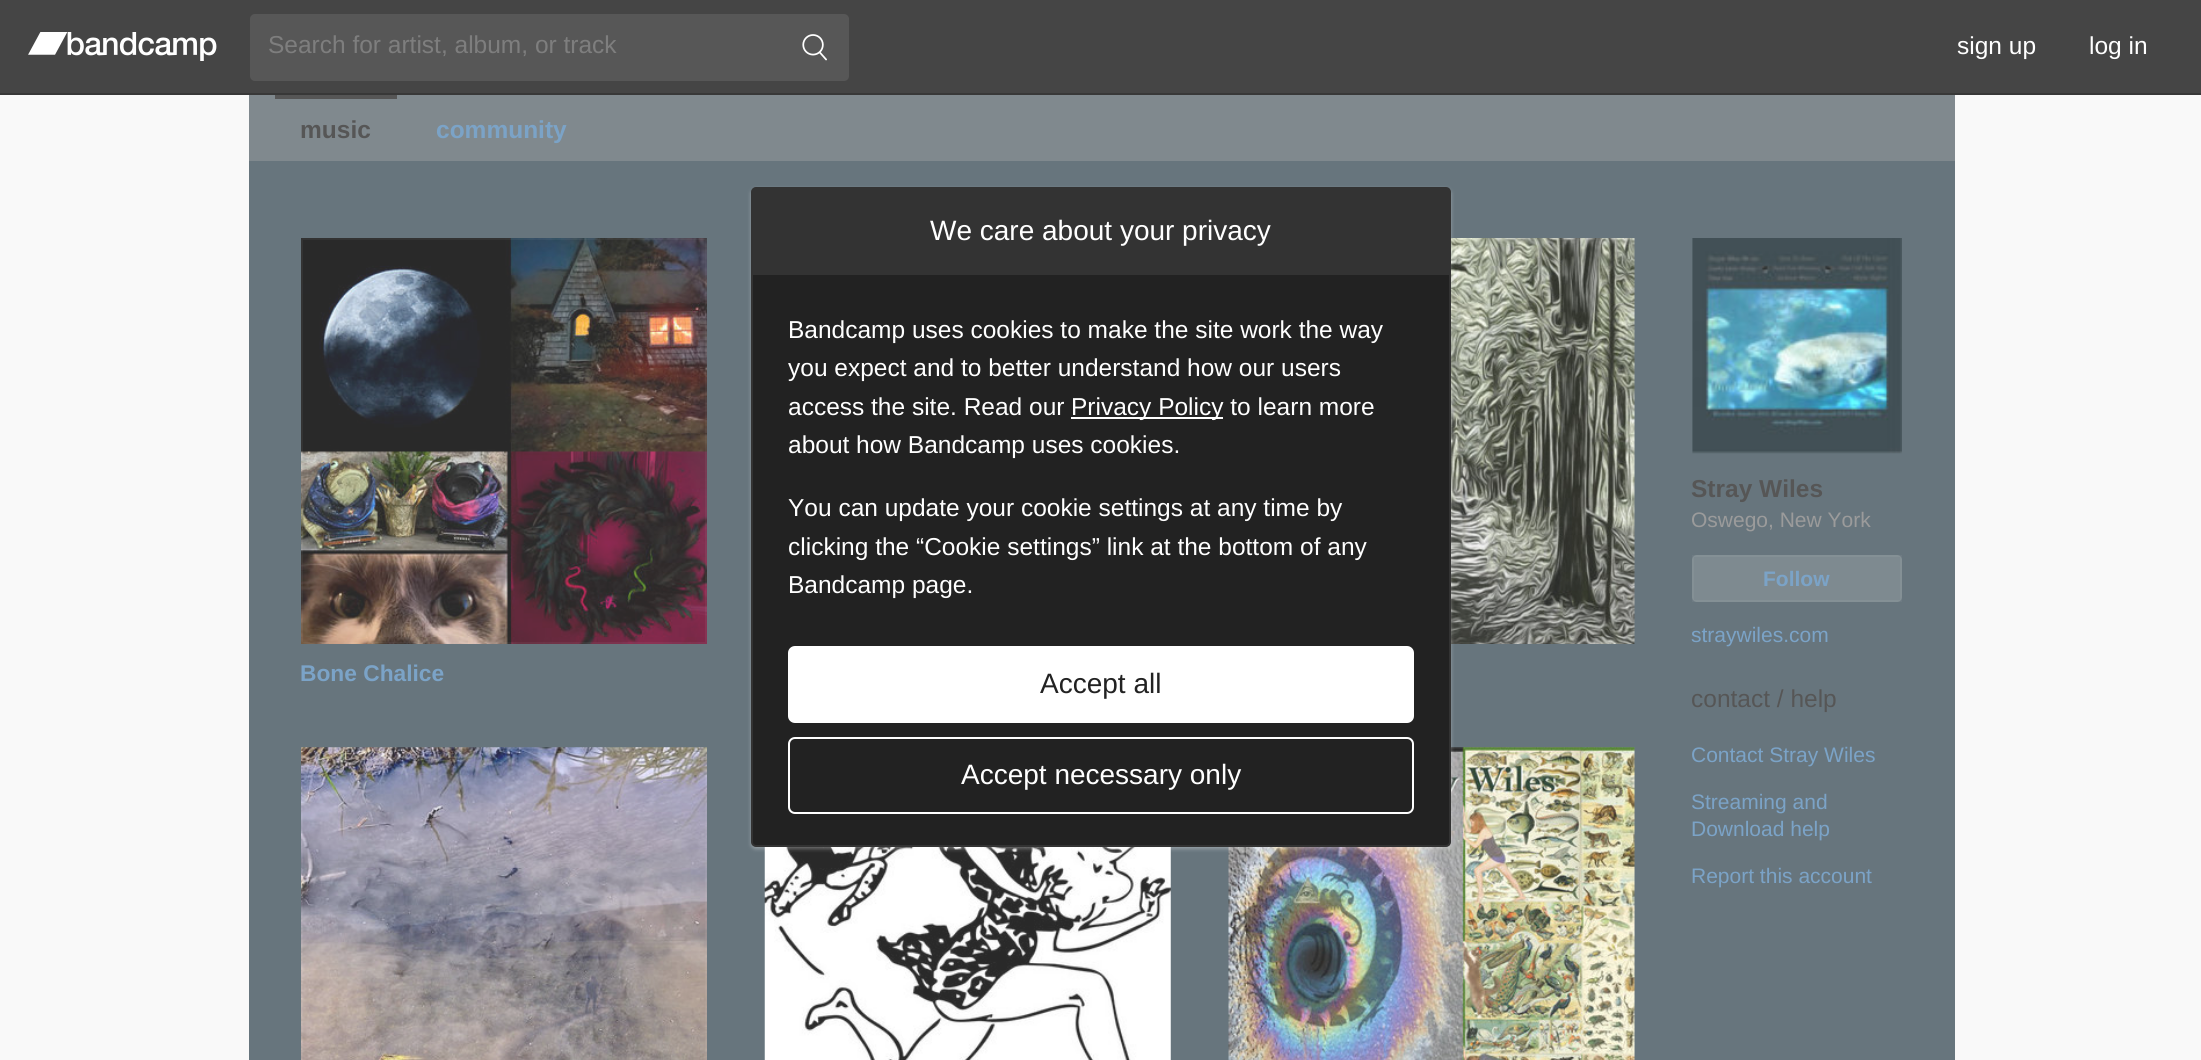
#include <cairo.h>
#include <math.h>
#include <stddef.h>


static void set_color(cairo_t *cr, unsigned color) {
    cairo_set_source_rgb(cr, (color >> 16) / 255.0, (color >> 8 & 255) / 255.0, (color & 255) / 255.0);
}

static void draw_text(cairo_t *cr, double x, double y, const char *s, const char *family, double size, int italic, int bold, unsigned color) {
    cairo_select_font_face(cr, family, italic ? CAIRO_FONT_SLANT_ITALIC : CAIRO_FONT_SLANT_NORMAL,
        bold ? CAIRO_FONT_WEIGHT_BOLD : CAIRO_FONT_WEIGHT_NORMAL);
    cairo_set_font_size(cr, size);
    set_color(cr, color);
    cairo_move_to(cr, x, y);
    cairo_show_text(cr, s);
}

static void fill_rect(cairo_t *cr, double x, double y, double w, double h, unsigned color) {
    set_color(cr, color);
    cairo_rectangle(cr, x, y, w, h);
    cairo_fill(cr);
}

static void rounded_rect(cairo_t *cr, double x, double y, double w, double h, double r) {
    cairo_new_sub_path(cr);
    cairo_arc(cr, x + w - r, y + h - r, r, 0, M_PI / 2);
    cairo_arc(cr, x + r, y + h - r, r, M_PI / 2, M_PI);
    cairo_arc(cr, x + r, y + r, r, M_PI, 1.5 * M_PI);
    cairo_arc(cr, x + w - r, y + r, r, 1.5 * M_PI, 2 * M_PI);
    cairo_close_path(cr);
}

static void draw_shadow(cairo_t *cr, double x, double y, double w, double h, double r, double blur, double alpha) {
    cairo_push_group_with_content(cr, CAIRO_CONTENT_ALPHA);
    cairo_set_operator(cr, CAIRO_OPERATOR_SOURCE);
    for (int i = 15; i >= -15 && fmin(w, h) + blur * i / 3 > 0; i -= 2) {
        double e = blur * i / 6;
        cairo_set_source_rgba(cr, 0, 0, 0, alpha * erfc((i - 1) / 8.5) / 2);
        rounded_rect(cr, x - e, y - e, w + 2 * e, h + 2 * e, fmax(0, fmin(r + e + blur * .6, fmin(w, h) / 2 + e)));
        cairo_fill(cr);
    }
    cairo_pattern_t *soft = cairo_pop_group(cr);
    cairo_mask(cr, soft);
    cairo_pattern_destroy(soft);
}

static void draw_image(cairo_t *cr, const char *path, double x, double y, double w, double h) {
    cairo_surface_t *image = cairo_image_surface_create_from_png(path);
    cairo_save(cr);
    cairo_set_source_surface(cr, image, x, y);
    cairo_rectangle(cr, x, y, w, h);
    cairo_fill(cr);
    cairo_restore(cr);
    cairo_surface_destroy(image);
}

int main(void) {
    cairo_surface_t *surface = cairo_image_surface_create(CAIRO_FORMAT_RGB24, 2201, 1060);
    cairo_t *cr = cairo_create(surface);
    cairo_font_options_t *options = cairo_font_options_create();
    cairo_font_options_set_hint_metrics(options, CAIRO_HINT_METRICS_OFF);
    cairo_font_options_set_hint_style(options, CAIRO_HINT_STYLE_NONE);
    cairo_set_font_options(cr, options);
    cairo_set_miter_limit(cr, 4);
    set_color(cr, 0xF9F9F9);
    cairo_paint(cr);
    fill_rect(cr, 0, 0, 2201, 93, 0x454545);
    set_color(cr, 0x383838);
    cairo_new_path(cr);
    cairo_move_to(cr, 0, 93);
    cairo_line_to(cr, 0, 95);
    cairo_line_to(cr, 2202, 95);
    cairo_line_to(cr, 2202, 2);
    cairo_line_to(cr, 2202, 93);
    cairo_close_path(cr);
    cairo_fill(cr);
    draw_image(cr, "assets/img1.png", 28, 32, 189, 29);
    set_color(cr, 0x575757);
    rounded_rect(cr, 250, 14, 599, 67, 5);
    cairo_fill(cr);
    draw_text(cr, 268, 53, "Search for artist, album, or track", "Liberation Sans", 24.5, 0, 0, 0x7E7E7E);
    draw_image(cr, "assets/img2.png", 802, 34, 25, 27);
    draw_text(cr, 1957, 54, "sign up", "Liberation Sans", 24.5, 0, 0, 0xFFFFFF);
    draw_text(cr, 2089, 54, "log in", "Liberation Sans", 24.5, 0, 0, 0xFFFFFF);
    fill_rect(cr, 249, 161, 1706, 899, 0x67757D);
    fill_rect(cr, 249, 95, 1706, 66, 0x80898E);
    fill_rect(cr, 275, 95, 122, 4, 0x565656);
    draw_text(cr, 300, 138, "music", "Liberation Sans", 24.5, 0, 1, 0x565656);
    draw_text(cr, 436, 138, "community", "Liberation Sans", 24.5, 0, 1, 0x7BA3C7);
    draw_image(cr, "assets/img3.png", 1451, 238, 184, 406);
    cairo_rectangle(cr, 1230, 239, 404, 404);
    cairo_set_source_rgba(cr, 1, 1, 1, 0.05);
    cairo_stroke(cr);
    draw_image(cr, "assets/img4.png", 301, 238, 406, 406);
    cairo_rectangle(cr, 302, 239, 404, 404);
    cairo_stroke(cr);
    draw_text(cr, 300, 681, "Bone Chalice", "Liberation Sans", 22.75, 0, 1, 0x7BA3C7);
    draw_image(cr, "assets/img5.png", 301, 747, 406, 313);
    cairo_rectangle(cr, 302, 748, 404, 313);
    cairo_set_source_rgba(cr, 1, 1, 1, 0.05);
    cairo_stroke(cr);
    draw_image(cr, "assets/img6.png", 764, 847, 407, 213);
    cairo_rectangle(cr, 766, 748, 404, 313);
    cairo_stroke(cr);
    draw_image(cr, "assets/img7.png", 1228, 747, 407, 313);
    cairo_rectangle(cr, 1230, 748, 404, 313);
    cairo_stroke(cr);
    draw_image(cr, "assets/img8.png", 1692, 238, 210, 216);
    draw_text(cr, 1691, 497, "Stray Wiles", "Liberation Sans", 24.5, 0, 1, 0x565656);
    draw_text(cr, 1691, 527, "Oswego, New York", "Liberation Sans", 21, 0, 0, 0x9B9B9B);
    set_color(cr, 0x7E8A90);
    rounded_rect(cr, 1692, 555, 210, 47, 5);
    cairo_fill(cr);
    cairo_rectangle(cr, 1693, 556, 208, 45);
    cairo_set_source_rgba(cr, 1, 1, 1, 0.05);
    cairo_stroke(cr);
    draw_text(cr, 1763, 586, "Follow", "Liberation Sans", 21, 0, 1, 0x7BA3C7);
    draw_text(cr, 1691, 642, "straywiles.com", "Liberation Sans", 21, 0, 0, 0x7BA3C7);
    draw_text(cr, 1691, 707, "contact / help", "Liberation Sans", 24.5, 0, 0, 0x565656);
    draw_text(cr, 1691, 762, "Contact Stray Wiles", "Liberation Sans", 21, 0, 0, 0x7BA3C7);
    draw_text(cr, 1691, 809, "Streaming and", "Liberation Sans", 21, 0, 0, 0x7BA3C7);
    draw_text(cr, 1691, 836, "Download help", "Liberation Sans", 21, 0, 0, 0x7BA3C7);
    draw_text(cr, 1691, 883, "Report this account", "Liberation Sans", 21, 0, 0, 0x7BA3C7);
    set_color(cr, 0xFFFFFF);
    draw_shadow(cr, 751, 189, 700, 660, 5, 2, 0.32);
    set_color(cr, 0x222222);
    rounded_rect(cr, 752, 188, 698, 658, 4);
    cairo_fill_preserve(cr);
    set_color(cr, 0x333333);
    cairo_stroke(cr);
    fill_rect(cr, 753, 189, 696, 86, 0x333333);
    draw_text(cr, 930, 240, "We care about your privacy", "Liberation Sans", 28, 0, 0, 0xFFFFFF);
    draw_text(cr, 788, 338, "Bandcamp uses cookies to make the site work the way", "Liberation Sans", 24.5, 0, 0, 0xFFFFFF);
    draw_text(cr, 788, 376, "you expect and to better understand how our users", "Liberation Sans", 24.5, 0, 0, 0xFFFFFF);
    draw_text(cr, 788, 415, "access the site. Read our", "Liberation Sans", 24.5, 0, 0, 0xFFFFFF);
    fill_rect(cr, 1071, 417, 152, 2, 0xFFFFFF);
    draw_text(cr, 1071, 415, "Privacy Policy to learn more", "Liberation Sans", 24.5, 0, 0, 0xFFFFFF);
    draw_text(cr, 788, 453, "about how Bandcamp uses cookies.", "Liberation Sans", 24.5, 0, 0, 0xFFFFFF);
    draw_text(cr, 788, 516, "You can update your cookie settings at any time by", "Liberation Sans", 24.5, 0, 0, 0xFFFFFF);
    draw_text(cr, 788, 555, "clicking the “Cookie settings” link at the bottom of any", "Liberation Sans", 24.5, 0, 0, 0xFFFFFF);
    draw_text(cr, 788, 593, "Bandcamp page.", "Liberation Sans", 24.5, 0, 0, 0xFFFFFF);
    rounded_rect(cr, 789, 647, 624, 75, 6);
    cairo_fill_preserve(cr);
    cairo_stroke(cr);
    draw_text(cr, 1040, 693, "Accept all", "Liberation Sans", 28, 0, 0, 0x222222);
    rounded_rect(cr, 789, 738, 624, 75, 6);
    set_color(cr, 0xFFFFFF);
    cairo_stroke(cr);
    draw_text(cr, 961, 784, "Accept necessary only", "Liberation Sans", 28, 0, 0, 0xFFFFFF);
    cairo_surface_write_to_png(surface, "output.png");
    cairo_font_options_destroy(options);
    cairo_destroy(cr);
    cairo_surface_destroy(surface);
    return 0;
}
